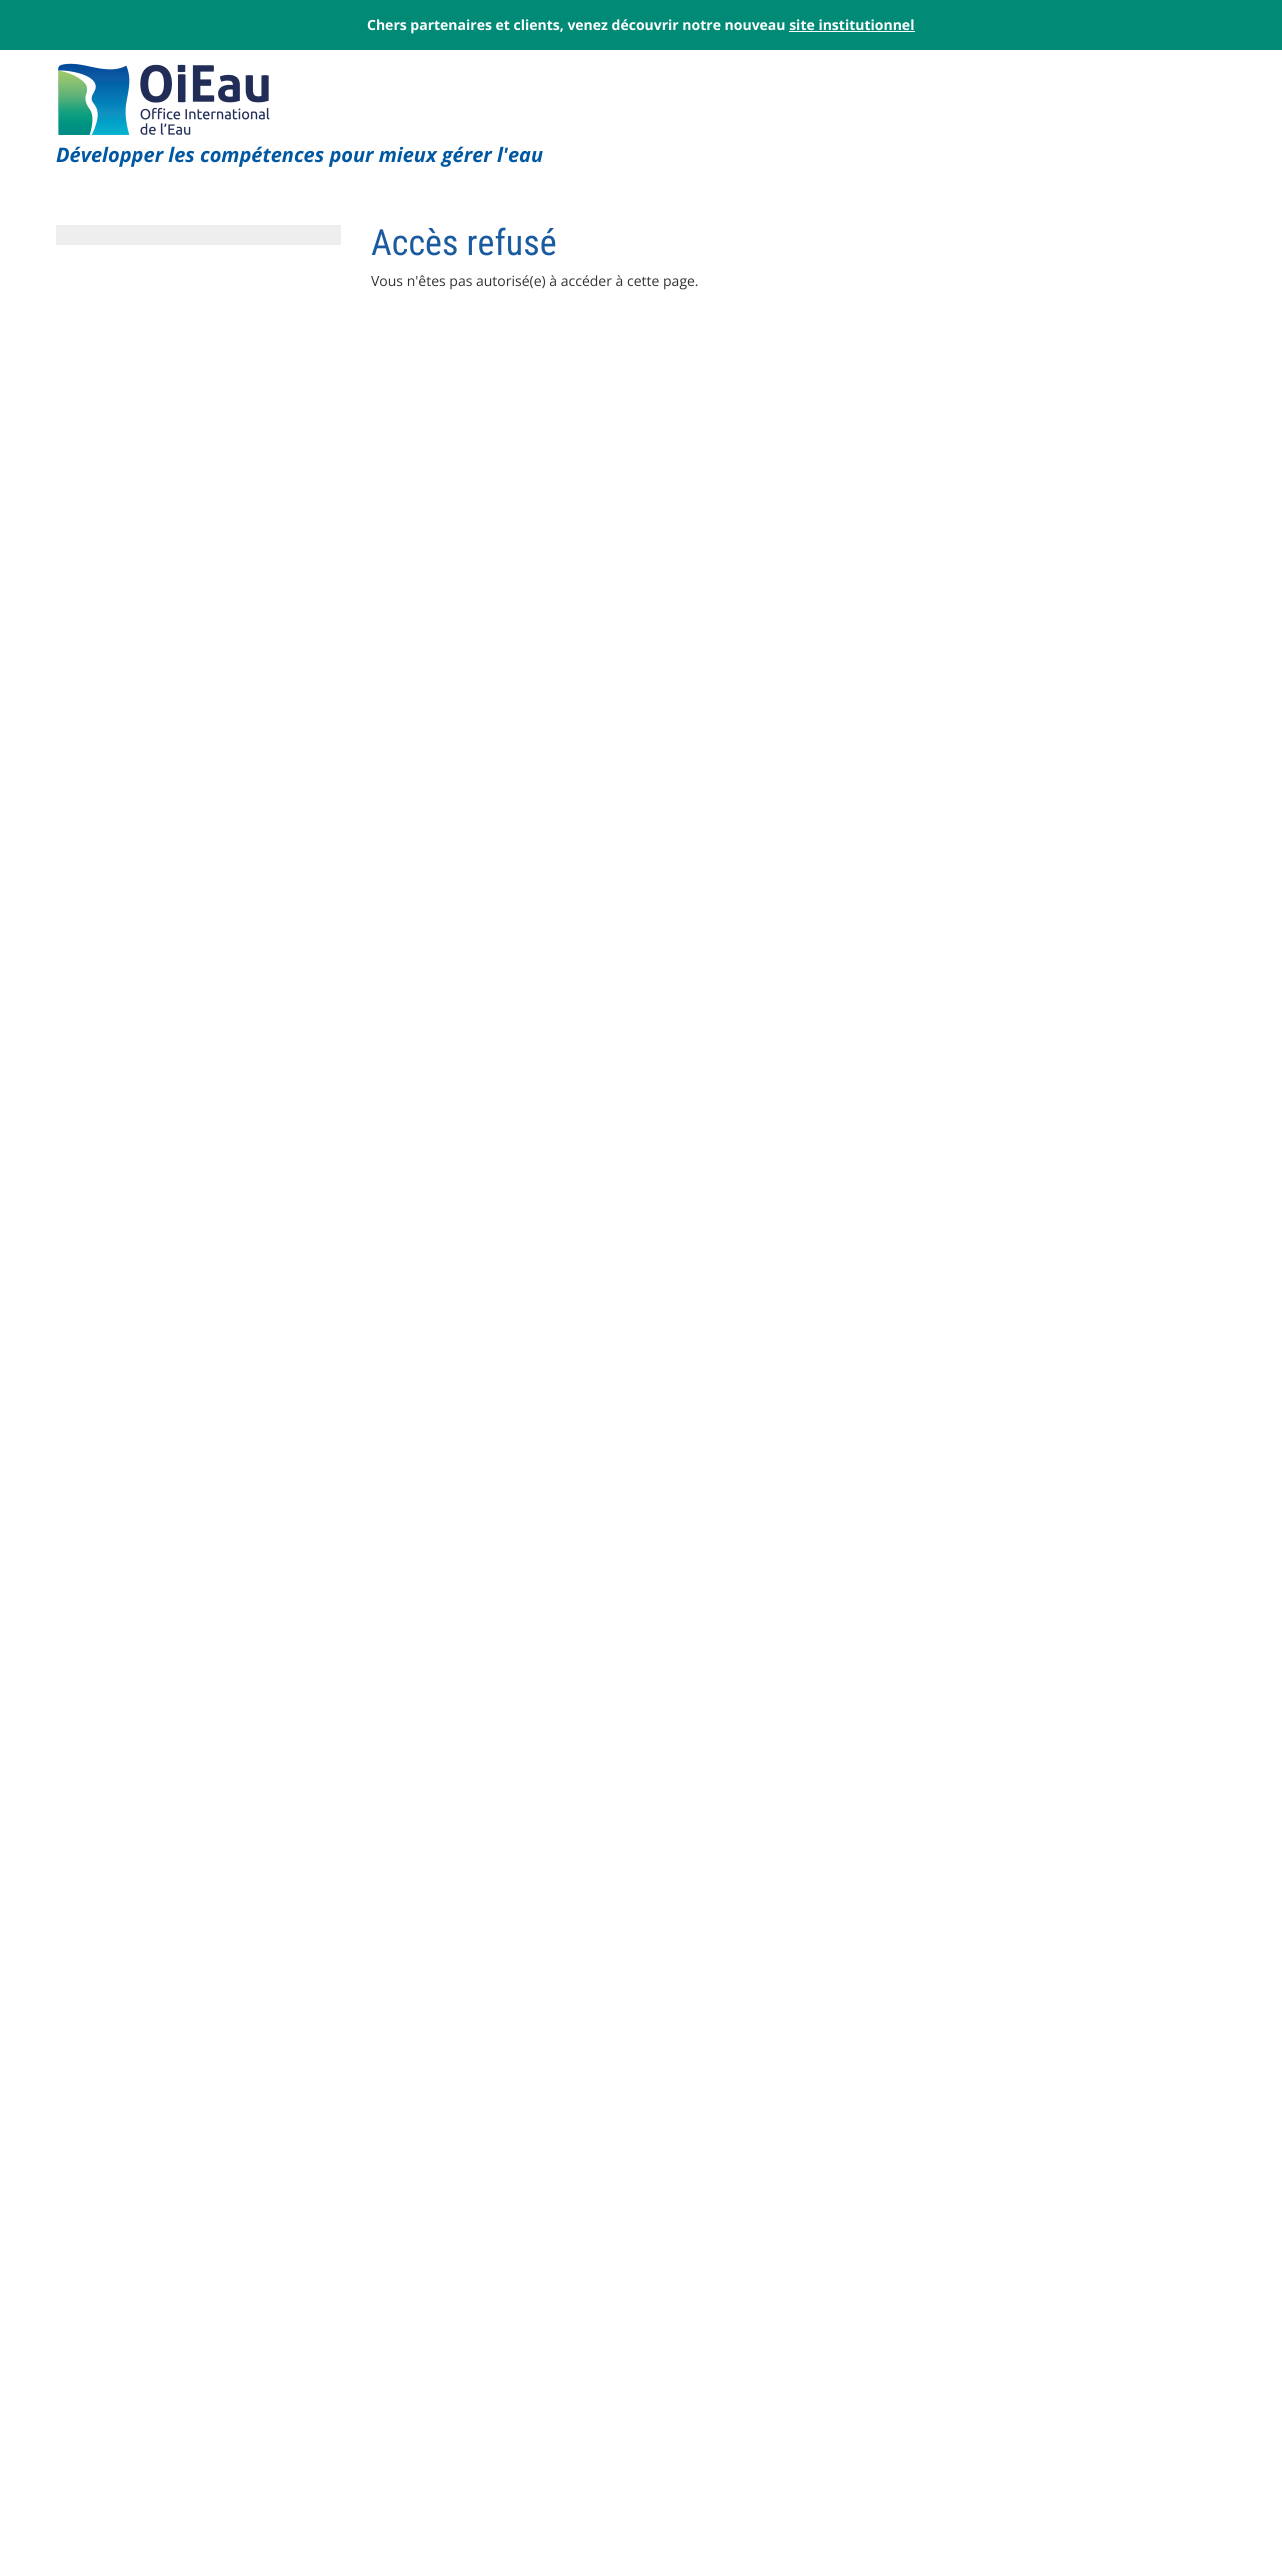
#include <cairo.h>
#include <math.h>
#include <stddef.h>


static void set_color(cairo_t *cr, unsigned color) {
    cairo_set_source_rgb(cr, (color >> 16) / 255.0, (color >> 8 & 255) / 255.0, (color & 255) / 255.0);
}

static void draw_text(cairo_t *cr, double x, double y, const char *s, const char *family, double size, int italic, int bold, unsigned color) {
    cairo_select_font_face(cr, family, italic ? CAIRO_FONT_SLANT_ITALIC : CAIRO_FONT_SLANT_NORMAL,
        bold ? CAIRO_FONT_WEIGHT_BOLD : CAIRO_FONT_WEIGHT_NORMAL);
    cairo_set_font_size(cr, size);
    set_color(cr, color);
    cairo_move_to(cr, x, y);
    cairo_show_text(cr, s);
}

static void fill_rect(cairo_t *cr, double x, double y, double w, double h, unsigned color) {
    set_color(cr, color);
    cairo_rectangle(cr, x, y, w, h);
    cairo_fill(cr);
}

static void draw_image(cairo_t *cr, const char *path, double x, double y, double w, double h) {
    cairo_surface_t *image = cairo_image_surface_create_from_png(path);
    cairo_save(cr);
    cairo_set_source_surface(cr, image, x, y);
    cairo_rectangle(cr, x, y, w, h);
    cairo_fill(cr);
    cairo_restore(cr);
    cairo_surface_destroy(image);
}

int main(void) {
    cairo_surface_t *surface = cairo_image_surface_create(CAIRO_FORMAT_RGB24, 1282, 2550);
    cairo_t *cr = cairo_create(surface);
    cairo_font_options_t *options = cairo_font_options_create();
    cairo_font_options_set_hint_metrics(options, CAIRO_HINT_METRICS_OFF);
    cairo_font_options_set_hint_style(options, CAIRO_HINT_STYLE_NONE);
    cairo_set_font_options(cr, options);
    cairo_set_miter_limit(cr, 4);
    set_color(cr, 0xFFFFFF);
    cairo_paint(cr);
    fill_rect(cr, 0, 0, 1282, 50, 0x018B77);
    draw_text(cr, 367, 30, "Chers partenaires et clients, venez découvrir notre nouveau site institutionnel", "Open Sans", 14, 0, 1, 0xFFFFFF);
    fill_rect(cr, 789, 31, 126, 1, 0xFFFFFF);
    draw_image(cr, "assets/img1.png", 58, 63, 212, 72);
    draw_text(cr, 56, 162, "Développer les compétences pour mieux gérer l'eau", "Open Sans", 20, 1, 1, 0x0058A2);
    fill_rect(cr, 56, 225, 285, 20, 0xEEEEEE);
    draw_text(cr, 371, 255, "Accès refusé", "Roboto Condensed", 36, 0, 0, 0x1A5A9E);
    draw_text(cr, 371, 286, "Vous n'êtes pas autorisé(e) à accéder à cette page.", "Open Sans", 14, 0, 0, 0x333333);
    cairo_surface_write_to_png(surface, "output.png");
    cairo_font_options_destroy(options);
    cairo_destroy(cr);
    cairo_surface_destroy(surface);
    return 0;
}
